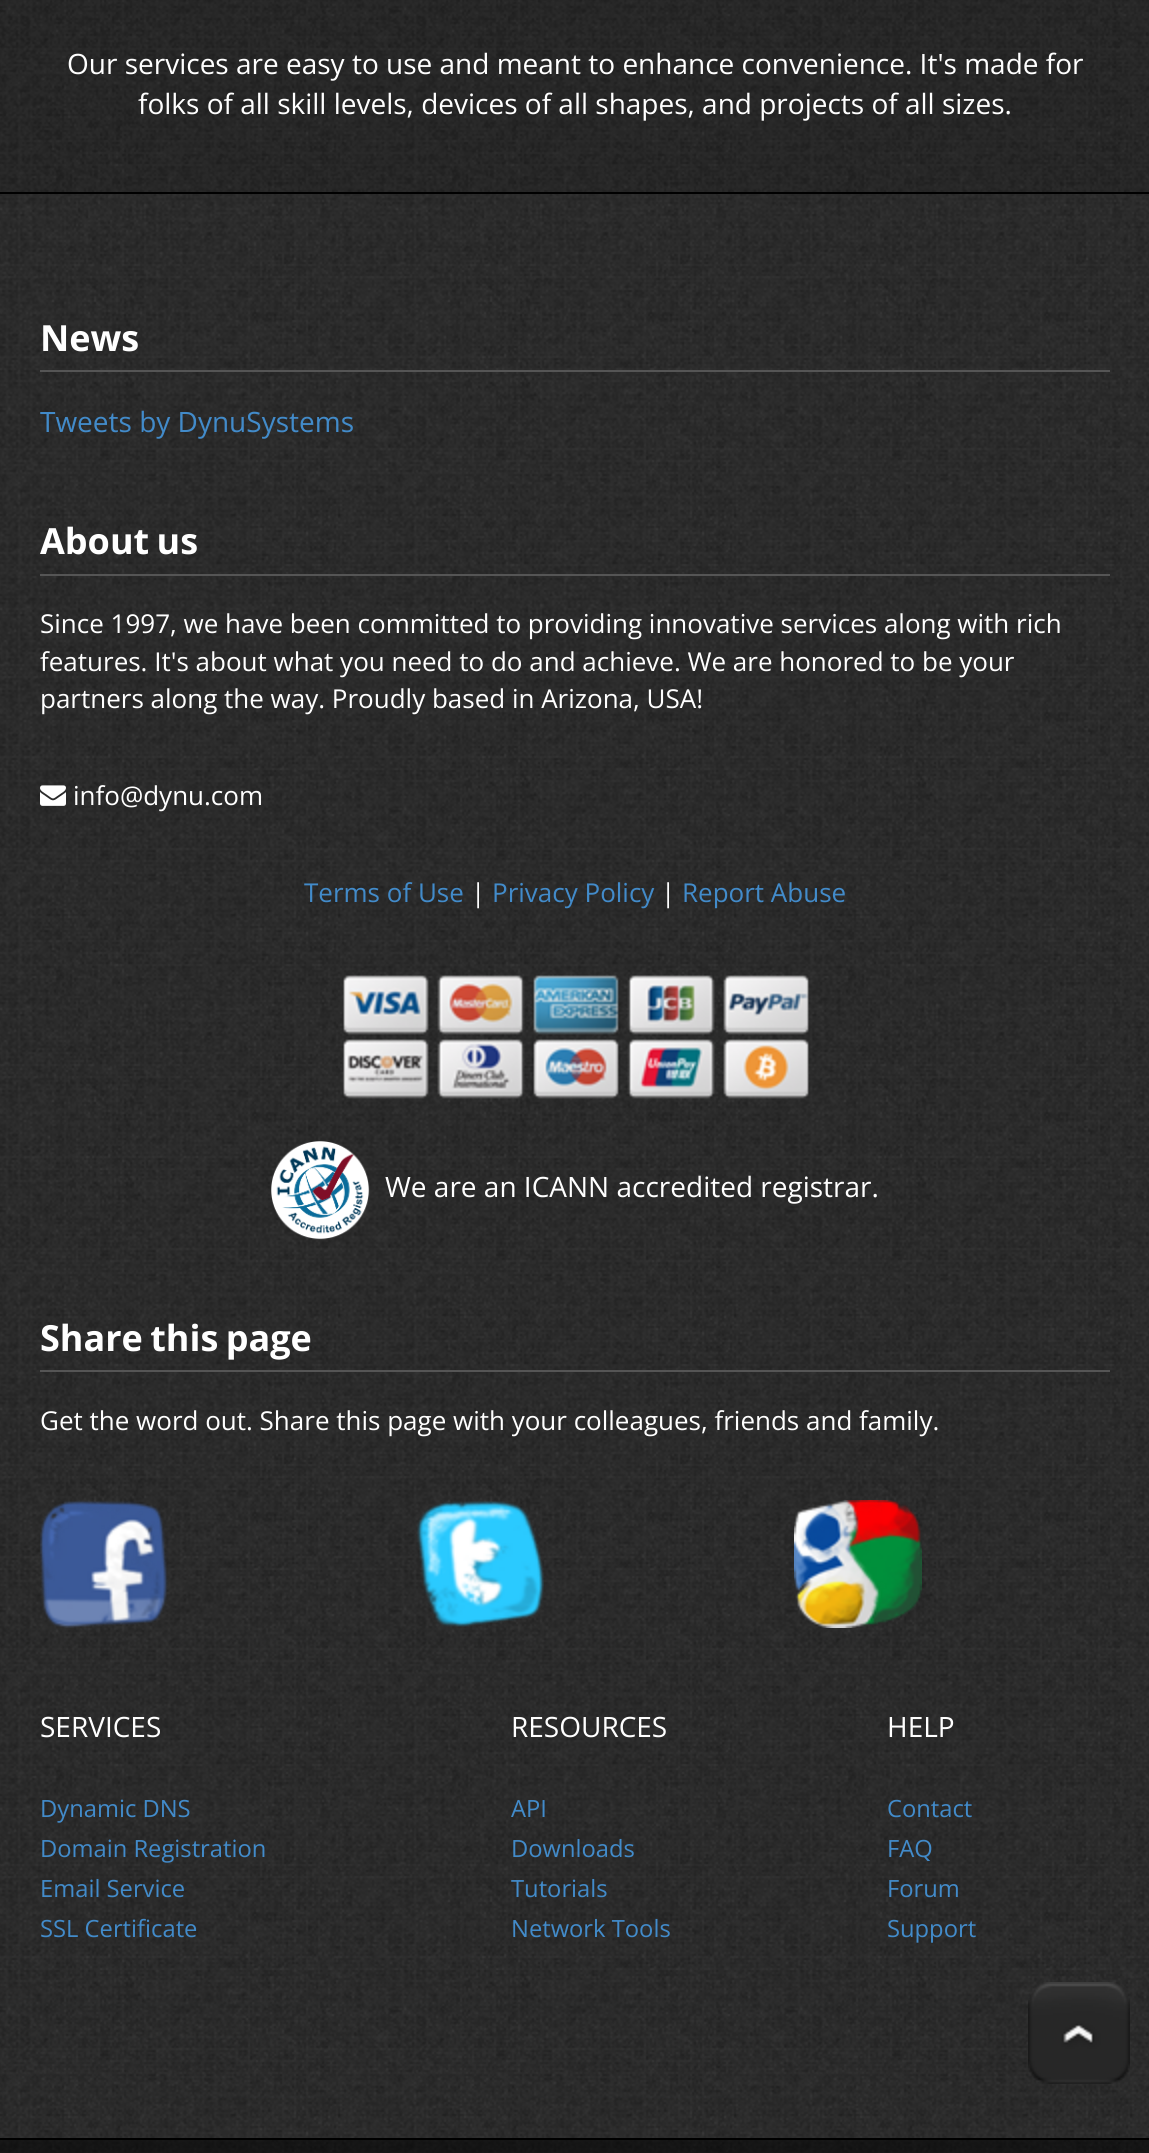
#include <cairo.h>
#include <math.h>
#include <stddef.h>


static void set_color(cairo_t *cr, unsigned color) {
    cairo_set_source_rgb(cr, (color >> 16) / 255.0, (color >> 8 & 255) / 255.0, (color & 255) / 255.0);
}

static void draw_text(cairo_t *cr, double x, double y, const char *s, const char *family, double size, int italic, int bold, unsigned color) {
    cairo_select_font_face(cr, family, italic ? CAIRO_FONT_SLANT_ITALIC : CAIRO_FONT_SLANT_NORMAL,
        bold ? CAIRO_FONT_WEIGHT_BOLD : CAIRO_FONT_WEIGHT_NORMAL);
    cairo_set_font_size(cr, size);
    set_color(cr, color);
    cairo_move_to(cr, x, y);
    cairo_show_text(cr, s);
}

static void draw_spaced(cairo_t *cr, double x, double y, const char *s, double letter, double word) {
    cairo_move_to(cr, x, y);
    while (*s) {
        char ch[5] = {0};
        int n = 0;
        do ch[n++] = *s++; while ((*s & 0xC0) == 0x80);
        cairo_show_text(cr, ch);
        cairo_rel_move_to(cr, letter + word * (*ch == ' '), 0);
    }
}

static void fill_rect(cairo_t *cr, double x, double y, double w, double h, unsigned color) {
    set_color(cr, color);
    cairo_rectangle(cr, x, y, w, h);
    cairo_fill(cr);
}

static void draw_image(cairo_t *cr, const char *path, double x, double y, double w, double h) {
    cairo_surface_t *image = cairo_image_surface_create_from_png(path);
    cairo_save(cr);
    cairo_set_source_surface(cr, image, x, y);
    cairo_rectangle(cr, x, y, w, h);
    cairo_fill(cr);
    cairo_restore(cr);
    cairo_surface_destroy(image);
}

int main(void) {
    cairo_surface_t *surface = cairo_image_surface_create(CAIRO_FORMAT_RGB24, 1149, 2153);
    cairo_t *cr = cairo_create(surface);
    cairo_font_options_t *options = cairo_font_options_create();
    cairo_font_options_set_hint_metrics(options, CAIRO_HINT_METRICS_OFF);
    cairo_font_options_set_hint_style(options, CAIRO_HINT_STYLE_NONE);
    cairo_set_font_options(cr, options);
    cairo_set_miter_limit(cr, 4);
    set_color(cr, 0xFFFFFF);
    cairo_paint(cr);
    draw_image(cr, "assets/img1.png", 0, 0, 1149, 2153);
    cairo_set_source_rgba(cr, 0, 0, 0, 0.1);
    cairo_rectangle(cr, 0, 0, 1149, 192);
    cairo_fill(cr);
    fill_rect(cr, 0, 192, 1149, 2, 0x000000);
    draw_text(cr, 67, 74, "Our services are easy to use and meant to enhance convenience. It's made for", "Open Sans", 28, 0, 0, 0xFFFFFF);
    draw_text(cr, 138, 114, "folks of all skill levels, devices of all shapes, and projects of all sizes.", "Open Sans", 28, 0, 0, 0xFFFFFF);
    fill_rect(cr, 40, 370, 1070, 2, 0x555555);
    draw_text(cr, 40, 351, "News", "Open Sans", 36, 0, 1, 0xFFFFFF);
    draw_text(cr, 40, 432, "Tweets by DynuSystems", "Open Sans", 28, 0, 0, 0x428BCA);
    fill_rect(cr, 40, 574, 1070, 2, 0x555555);
    cairo_select_font_face(cr, "Open Sans", CAIRO_FONT_SLANT_NORMAL, CAIRO_FONT_WEIGHT_BOLD);
    cairo_set_font_size(cr, 36);
    set_color(cr, 0xFFFFFF);
    draw_spaced(cr, 40, 554, "About us", 0, -2);
    draw_text(cr, 40, 633, "Since 1997, we have been committed to providing innovative services along with rich", "Open Sans", 26, 0, 0, 0xFFFFFF);
    draw_text(cr, 40, 671, "features. It's about what you need to do and achieve. We are honored to be your", "Open Sans", 26, 0, 0, 0xFFFFFF);
    draw_text(cr, 40, 708, "partners along the way. Proudly based in Arizona, USA!", "Open Sans", 26, 0, 0, 0xFFFFFF);
    draw_image(cr, "assets/img2.png", 40, 785, 26, 21);
    draw_text(cr, 73, 805, "info@dynu.com", "Open Sans", 26, 0, 0, 0xFFFFFF);
    draw_text(cr, 304, 902, "Terms of Use", "Open Sans", 26, 0, 0, 0x428BCA);
    draw_text(cr, 471, 902, "|", "Open Sans", 26, 0, 0, 0xFFFFFF);
    draw_text(cr, 492, 902, "Privacy Policy", "Open Sans", 26, 0, 0, 0x428BCA);
    draw_text(cr, 661, 902, "|", "Open Sans", 26, 0, 0, 0xFFFFFF);
    draw_text(cr, 682, 902, "Report Abuse", "Open Sans", 26, 0, 0, 0x428BCA);
    draw_image(cr, "assets/img3.png", 343, 975, 466, 124);
    draw_image(cr, "assets/img4.png", 271, 1141, 99, 99);
    draw_text(cr, 385, 1197, "We are an ICANN accredited registrar.", "Open Sans", 28, 0, 0, 0xFFFFFF);
    fill_rect(cr, 40, 1370, 1070, 2, 0x555555);
    cairo_select_font_face(cr, "Open Sans", CAIRO_FONT_SLANT_NORMAL, CAIRO_FONT_WEIGHT_BOLD);
    cairo_set_font_size(cr, 36);
    set_color(cr, 0xFFFFFF);
    draw_spaced(cr, 40, 1351, "Share this page", 0, -2);
    draw_text(cr, 40, 1430, "Get the word out. Share this page with your colleagues, friends and family.", "Open Sans", 26, 0, 0, 0xFFFFFF);
    draw_image(cr, "assets/img5.png", 40, 1500, 128, 128);
    draw_image(cr, "assets/img6.png", 417, 1501, 127, 126);
    draw_image(cr, "assets/img7.png", 794, 1500, 128, 128);
    draw_text(cr, 40, 1737, "SERVICES", "Open Sans", 28, 0, 0, 0xFFFFFF);
    draw_text(cr, 40, 1817, "Dynamic DNS", "Open Sans", 23.75, 0, 0, 0x428BCA);
    draw_text(cr, 40, 1857, "Domain Registration", "Open Sans", 23.75, 0, 0, 0x428BCA);
    draw_text(cr, 40, 1897, "Email Service", "Open Sans", 23.75, 0, 0, 0x428BCA);
    draw_text(cr, 40, 1937, "SSL Certificate", "Open Sans", 23.75, 0, 0, 0x428BCA);
    draw_text(cr, 511, 1737, "RESOURCES", "Open Sans", 28, 0, 0, 0xFFFFFF);
    draw_text(cr, 511, 1817, "API", "Open Sans", 23.75, 0, 0, 0x428BCA);
    draw_text(cr, 511, 1857, "Downloads", "Open Sans", 23.75, 0, 0, 0x428BCA);
    draw_text(cr, 511, 1897, "Tutorials", "Open Sans", 23.75, 0, 0, 0x428BCA);
    draw_text(cr, 511, 1937, "Network Tools", "Open Sans", 23.75, 0, 0, 0x428BCA);
    draw_text(cr, 887, 1737, "HELP", "Open Sans", 28, 0, 0, 0xFFFFFF);
    draw_text(cr, 887, 1817, "Contact", "Open Sans", 23.75, 0, 0, 0x428BCA);
    draw_text(cr, 887, 1857, "FAQ", "Open Sans", 23.75, 0, 0, 0x428BCA);
    draw_text(cr, 887, 1897, "Forum", "Open Sans", 23.75, 0, 0, 0x428BCA);
    draw_text(cr, 887, 1937, "Support", "Open Sans", 23.75, 0, 0, 0x428BCA);
    cairo_set_source_rgba(cr, 0, 0, 0, 0.5);
    cairo_rectangle(cr, 0, 2140, 1149, 13);
    cairo_fill(cr);
    fill_rect(cr, 0, 2138, 1149, 2, 0x000000);
    draw_image(cr, "assets/img8.png", 1028, 1982, 102, 102);
    cairo_surface_write_to_png(surface, "output.png");
    cairo_font_options_destroy(options);
    cairo_destroy(cr);
    cairo_surface_destroy(surface);
    return 0;
}
